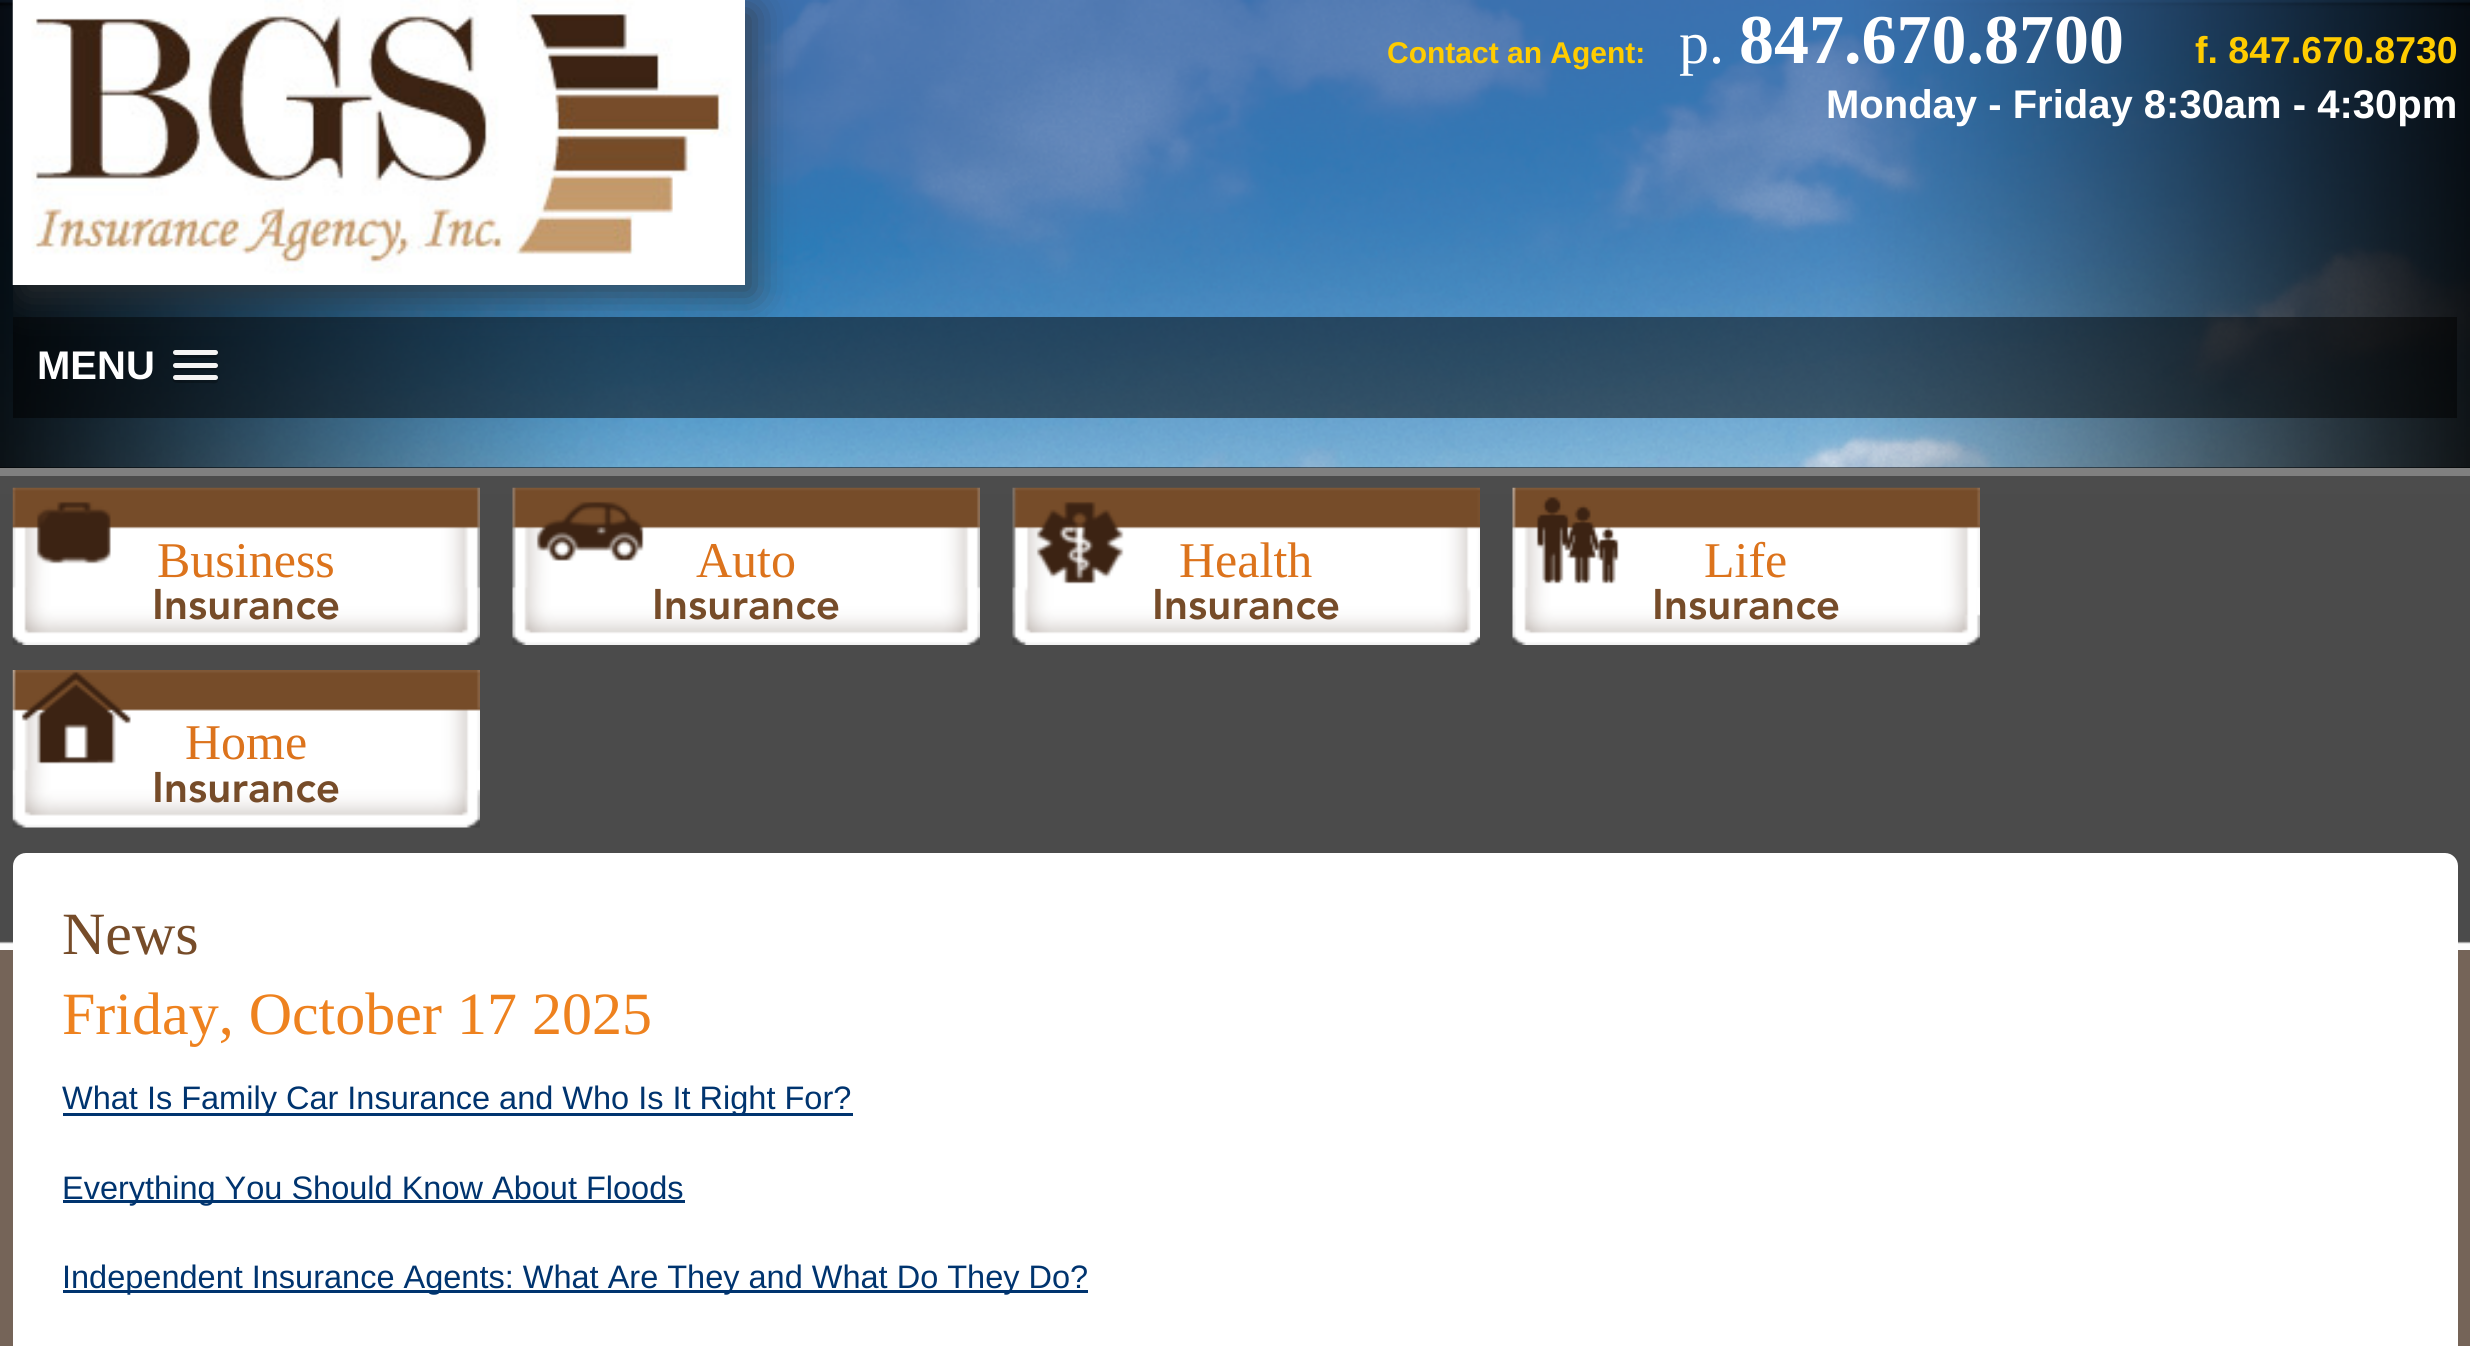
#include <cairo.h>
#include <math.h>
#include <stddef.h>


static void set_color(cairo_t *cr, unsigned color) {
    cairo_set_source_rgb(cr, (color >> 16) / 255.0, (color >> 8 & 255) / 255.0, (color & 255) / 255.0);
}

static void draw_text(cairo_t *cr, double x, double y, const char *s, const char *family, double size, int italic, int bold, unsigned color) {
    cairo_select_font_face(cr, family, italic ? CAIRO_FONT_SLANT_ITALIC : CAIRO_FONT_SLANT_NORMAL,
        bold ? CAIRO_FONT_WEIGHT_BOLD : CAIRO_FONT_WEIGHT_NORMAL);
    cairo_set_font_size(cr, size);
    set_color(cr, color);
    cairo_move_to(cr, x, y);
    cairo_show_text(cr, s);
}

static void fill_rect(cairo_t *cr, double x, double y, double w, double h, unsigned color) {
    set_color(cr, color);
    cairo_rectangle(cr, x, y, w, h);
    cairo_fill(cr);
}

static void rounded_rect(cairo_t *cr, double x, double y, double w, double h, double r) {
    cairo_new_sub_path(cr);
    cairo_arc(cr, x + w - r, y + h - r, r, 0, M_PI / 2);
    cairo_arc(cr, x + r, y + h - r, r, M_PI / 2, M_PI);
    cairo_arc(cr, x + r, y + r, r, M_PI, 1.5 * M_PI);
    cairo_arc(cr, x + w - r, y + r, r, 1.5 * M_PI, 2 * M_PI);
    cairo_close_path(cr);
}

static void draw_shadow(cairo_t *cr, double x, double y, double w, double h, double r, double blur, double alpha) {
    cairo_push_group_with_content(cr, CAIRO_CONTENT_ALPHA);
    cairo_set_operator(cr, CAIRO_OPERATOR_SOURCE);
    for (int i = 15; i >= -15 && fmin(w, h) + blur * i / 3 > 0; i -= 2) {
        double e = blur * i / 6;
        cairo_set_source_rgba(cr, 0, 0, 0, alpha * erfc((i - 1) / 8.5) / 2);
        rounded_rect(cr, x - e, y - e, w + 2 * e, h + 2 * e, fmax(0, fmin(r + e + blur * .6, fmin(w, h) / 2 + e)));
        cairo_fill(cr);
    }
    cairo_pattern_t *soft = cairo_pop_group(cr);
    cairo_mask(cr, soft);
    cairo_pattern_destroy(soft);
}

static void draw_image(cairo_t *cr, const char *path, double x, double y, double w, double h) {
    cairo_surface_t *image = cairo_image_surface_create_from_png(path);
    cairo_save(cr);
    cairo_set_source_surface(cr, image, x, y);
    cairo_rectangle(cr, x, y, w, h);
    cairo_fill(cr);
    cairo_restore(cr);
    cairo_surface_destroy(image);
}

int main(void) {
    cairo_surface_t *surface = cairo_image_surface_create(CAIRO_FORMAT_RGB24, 2470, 1346);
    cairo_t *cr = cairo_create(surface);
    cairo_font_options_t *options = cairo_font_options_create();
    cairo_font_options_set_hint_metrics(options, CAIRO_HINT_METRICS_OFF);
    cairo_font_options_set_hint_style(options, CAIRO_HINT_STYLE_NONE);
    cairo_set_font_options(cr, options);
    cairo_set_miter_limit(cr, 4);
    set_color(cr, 0x756458);
    cairo_paint(cr);
    fill_rect(cr, 0, 467, 2470, 1, 0x000000);
    draw_image(cr, "assets/img1.png", 0, 0, 2470, 468);
    cairo_set_source_rgba(cr, 0, 0, 0, 0.5);
    cairo_rectangle(cr, 13, 317, 2444, 101);
    cairo_fill(cr);
    cairo_set_source_rgba(cr, 0, 0, 0, 0.25);
    cairo_new_path(cr);
    cairo_move_to(cr, 173, 354);
    cairo_curve_to(cr, 171, 359, 182, 358, 182, 358);
    cairo_line_to(cr, 209, 358);
    cairo_curve_to(cr, 210, 358, 217, 360, 218, 356);
    cairo_line_to(cr, 217, 354);
    cairo_line_to(cr, 215, 355);
    cairo_curve_to(cr, 212, 355, 175, 356, 173, 354);
    cairo_close_path(cr);
    cairo_fill(cr);
    set_color(cr, 0xF5F5F5);
    rounded_rect(cr, 173, 350, 45, 5, 2.5);
    cairo_fill(cr);
    cairo_save(cr);
    cairo_rectangle(cr, 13, 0, 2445, 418);
    cairo_clip(cr);
    set_color(cr, 0x323232);
    draw_shadow(cr, 23, 10, 732, 285, 0, 19, 0.75);
    cairo_restore(cr);
    draw_image(cr, "assets/img2.png", 12, 0, 733, 285);
    draw_text(cr, 1387, 63, "Contact an Agent:", "Liberation Sans", 30, 0, 1, 0xFFCC00);
    draw_text(cr, 1679, 63, "p.", "Liberation Serif", 60, 0, 0, 0xFFFFFF);
    draw_text(cr, 1739, 63, "847.670.8700", "Liberation Serif", 70, 0, 1, 0xFFFFFF);
    draw_text(cr, 2195, 63, "f. 847.670.8730", "Liberation Sans", 37.5, 0, 1, 0xFFCC00);
    draw_text(cr, 1826, 118, "Monday - Friday 8:30am - 4:30pm", "Liberation Sans", 40, 0, 1, 0xFFFFFF);
    draw_text(cr, 37, 379, "MENU", "Liberation Sans", 40, 0, 1, 0xFFFFFF);
    cairo_set_source_rgba(cr, 0, 0, 0, 0.25);
    cairo_new_path(cr);
    cairo_move_to(cr, 173, 367);
    cairo_curve_to(cr, 171, 372, 181, 370, 182, 370);
    cairo_line_to(cr, 209, 370);
    cairo_curve_to(cr, 210, 370, 217, 372, 218, 368);
    cairo_line_to(cr, 217, 366);
    cairo_line_to(cr, 215, 367);
    cairo_line_to(cr, 175, 367);
    cairo_close_path(cr);
    cairo_fill(cr);
    set_color(cr, 0xF5F5F5);
    rounded_rect(cr, 173, 363, 45, 5, 2.5);
    cairo_fill(cr);
    cairo_set_source_rgba(cr, 0, 0, 0, 0.25);
    cairo_new_path(cr);
    cairo_move_to(cr, 173, 379);
    cairo_curve_to(cr, 171, 384, 182, 383, 182, 383);
    cairo_line_to(cr, 209, 383);
    cairo_curve_to(cr, 210, 383, 217, 385, 218, 381);
    cairo_line_to(cr, 217, 379);
    cairo_line_to(cr, 215, 380);
    cairo_curve_to(cr, 212, 380, 175, 381, 173, 379);
    cairo_close_path(cr);
    cairo_fill(cr);
    set_color(cr, 0xF5F5F5);
    rounded_rect(cr, 173, 375, 45, 5, 2.5);
    cairo_fill(cr);
    fill_rect(cr, 0, 468, 2470, 8, 0x808080);
    draw_image(cr, "assets/img3.png", 0, 476, 2470, 474);
    draw_image(cr, "assets/img4.png", 12, 487, 468, 158);
    draw_text(cr, 157, 577, "Business", "Liberation Serif", 50, 0, 0, 0xDC731C);
    draw_text(cr, 152, 619, "Insurance", "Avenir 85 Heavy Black", 42.5, 0, 0, 0x764C29);
    draw_image(cr, "assets/img5.png", 512, 487, 468, 158);
    draw_text(cr, 696, 577, "Auto", "Liberation Serif", 50, 0, 0, 0xDC731C);
    draw_text(cr, 652, 619, "Insurance", "Avenir 85 Heavy Black", 42.5, 0, 0, 0x764C29);
    draw_image(cr, "assets/img6.png", 1012, 487, 468, 158);
    draw_text(cr, 1179, 577, "Health", "Liberation Serif", 50, 0, 0, 0xDC731C);
    draw_text(cr, 1152, 619, "Insurance", "Avenir 85 Heavy Black", 42.5, 0, 0, 0x764C29);
    draw_image(cr, "assets/img7.png", 1512, 487, 468, 158);
    draw_text(cr, 1704, 577, "Life", "Liberation Serif", 50, 0, 0, 0xDC731C);
    draw_text(cr, 1652, 619, "Insurance", "Avenir 85 Heavy Black", 42.5, 0, 0, 0x764C29);
    draw_image(cr, "assets/img8.png", 12, 670, 468, 158);
    draw_text(cr, 185, 759, "Home", "Liberation Serif", 50, 0, 0, 0xDC731C);
    draw_text(cr, 152, 802, "Insurance", "Avenir 85 Heavy Black", 42.5, 0, 0, 0x764C29);
    set_color(cr, 0xFFFFFF);
    rounded_rect(cr, 13, 853, 2445, 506, 13);
    cairo_fill(cr);
    draw_text(cr, 62, 954, "News", "Liberation Serif", 60, 0, 0, 0x764C29);
    draw_text(cr, 62, 1034, "Friday, October 17 2025", "Liberation Serif", 60, 0, 0, 0xEE821F);
    fill_rect(cr, 63, 1113, 790, 3, 0x00346F);
    draw_text(cr, 62, 1109, "What Is Family Car Insurance and Who Is It Right For?", "Liberation Sans", 32.5, 0, 0, 0x00346F);
    fill_rect(cr, 63, 1200, 622, 3, 0x00346F);
    draw_text(cr, 62, 1199, "Everything You Should Know About Floods", "Liberation Sans", 32.5, 0, 0, 0x00346F);
    fill_rect(cr, 63, 1290, 1025, 3, 0x00346F);
    draw_text(cr, 62, 1288, "Independent Insurance Agents: What Are They and What Do They Do?", "Liberation Sans", 32.5, 0, 0, 0x00346F);
    cairo_surface_write_to_png(surface, "output.png");
    cairo_font_options_destroy(options);
    cairo_destroy(cr);
    cairo_surface_destroy(surface);
    return 0;
}
